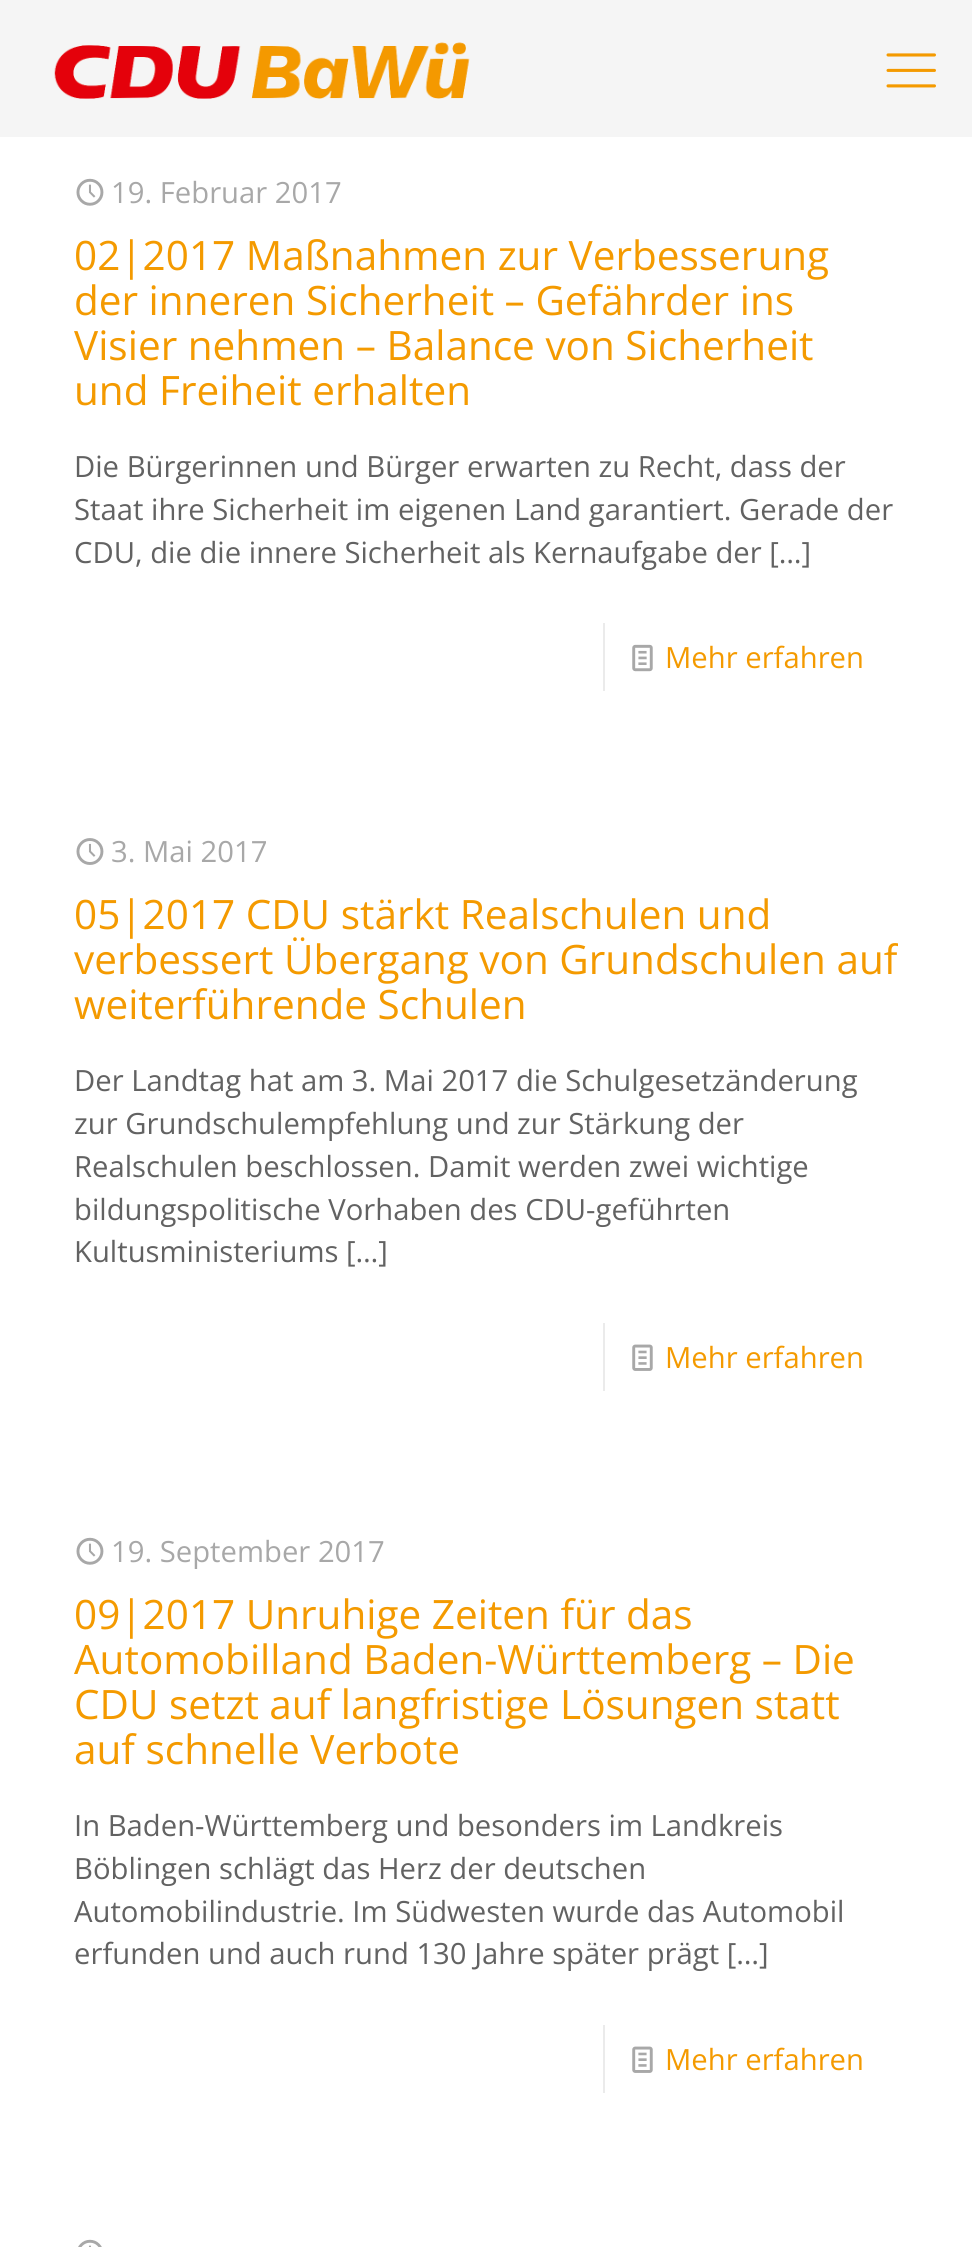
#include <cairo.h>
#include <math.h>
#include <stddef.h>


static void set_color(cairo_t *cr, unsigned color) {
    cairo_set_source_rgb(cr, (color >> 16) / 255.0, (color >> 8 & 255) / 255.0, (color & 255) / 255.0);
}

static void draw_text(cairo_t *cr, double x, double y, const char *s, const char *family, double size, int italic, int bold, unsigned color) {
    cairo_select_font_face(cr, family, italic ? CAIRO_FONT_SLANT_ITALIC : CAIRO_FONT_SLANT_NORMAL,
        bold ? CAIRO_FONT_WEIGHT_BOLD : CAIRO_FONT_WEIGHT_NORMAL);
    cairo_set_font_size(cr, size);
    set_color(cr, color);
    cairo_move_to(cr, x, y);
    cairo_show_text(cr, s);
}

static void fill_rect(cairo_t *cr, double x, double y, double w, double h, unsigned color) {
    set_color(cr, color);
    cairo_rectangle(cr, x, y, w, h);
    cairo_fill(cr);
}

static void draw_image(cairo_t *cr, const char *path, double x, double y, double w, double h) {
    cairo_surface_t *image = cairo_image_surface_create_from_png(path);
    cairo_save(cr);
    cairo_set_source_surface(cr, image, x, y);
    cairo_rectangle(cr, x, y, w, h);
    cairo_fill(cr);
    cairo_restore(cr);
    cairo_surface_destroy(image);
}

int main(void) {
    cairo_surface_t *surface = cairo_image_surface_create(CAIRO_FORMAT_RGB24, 972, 2247);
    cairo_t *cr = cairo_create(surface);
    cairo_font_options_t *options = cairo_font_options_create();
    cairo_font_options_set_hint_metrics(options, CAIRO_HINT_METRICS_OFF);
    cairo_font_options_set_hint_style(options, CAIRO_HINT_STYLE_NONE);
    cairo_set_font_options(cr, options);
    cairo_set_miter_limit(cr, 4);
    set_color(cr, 0xF5F5F5);
    cairo_paint(cr);
    draw_image(cr, "assets/img1.png", 54, 42, 416, 57);
    draw_image(cr, "assets/img2.png", 886, 53, 50, 35);
    fill_rect(cr, 0, 137, 972, 2110, 0xFFFFFF);
    draw_image(cr, "assets/img3.png", 76, 178, 28, 28);
    draw_text(cr, 111, 203, "19. Februar 2017", "Open Sans", 29.25, 0, 0, 0xA8A8A8);
    draw_text(cr, 74, 270, "02|2017 Maßnahmen zur Verbesserung", "Open Sans", 40.5, 0, 0, 0xF49A00);
    draw_text(cr, 74, 315, "der inneren Sicherheit – Gefährder ins", "Open Sans", 40.5, 0, 0, 0xF49A00);
    draw_text(cr, 74, 360, "Visier nehmen – Balance von Sicherheit", "Open Sans", 40.5, 0, 0, 0xF49A00);
    draw_text(cr, 74, 405, "und Freiheit erhalten", "Open Sans", 40.5, 0, 0, 0xF49A00);
    draw_text(cr, 74, 477, "Die Bürgerinnen und Bürger erwarten zu Recht, dass der", "Open Sans", 29.25, 0, 0, 0x626262);
    draw_text(cr, 74, 520, "Staat ihre Sicherheit im eigenen Land garantiert. Gerade der", "Open Sans", 29.25, 0, 0, 0x626262);
    draw_text(cr, 74, 563, "CDU, die die innere Sicherheit als Kernaufgabe der […]", "Open Sans", 29.25, 0, 0, 0x626262);
    fill_rect(cr, 603, 623, 2, 68, 0xEBEBEB);
    draw_image(cr, "assets/img4.png", 632, 644, 21, 28);
    draw_text(cr, 665, 668, "Mehr erfahren", "Open Sans", 29.25, 0, 0, 0xF49A00);
    draw_image(cr, "assets/img5.png", 76, 838, 28, 27);
    draw_text(cr, 111, 862, "3. Mai 2017", "Open Sans", 29.25, 0, 0, 0xA8A8A8);
    draw_text(cr, 74, 929, "05|2017 CDU stärkt Realschulen und", "Open Sans", 40.5, 0, 0, 0xF49A00);
    cairo_save(cr);
    cairo_rectangle(cr, 74, 797, 824, 609);
    cairo_clip(cr);
    draw_text(cr, 74, 974, "verbessert Übergang von Grundschulen auf", "Open Sans", 40.5, 0, 0, 0xF49A00);
    cairo_restore(cr);
    draw_text(cr, 74, 1019, "weiterführende Schulen", "Open Sans", 40.5, 0, 0, 0xF49A00);
    draw_text(cr, 74, 1091, "Der Landtag hat am 3. Mai 2017 die Schulgesetzänderung", "Open Sans", 29.25, 0, 0, 0x626262);
    draw_text(cr, 74, 1134, "zur Grundschulempfehlung und zur Stärkung der", "Open Sans", 29.25, 0, 0, 0x626262);
    draw_text(cr, 74, 1177, "Realschulen beschlossen. Damit werden zwei wichtige", "Open Sans", 29.25, 0, 0, 0x626262);
    draw_text(cr, 74, 1220, "bildungspolitische Vorhaben des CDU-geführten", "Open Sans", 29.25, 0, 0, 0x626262);
    draw_text(cr, 74, 1262, "Kultusministeriums […]", "Open Sans", 29.25, 0, 0, 0x626262);
    fill_rect(cr, 603, 1323, 2, 68, 0xEBEBEB);
    draw_image(cr, "assets/img6.png", 632, 1344, 21, 27);
    draw_text(cr, 665, 1368, "Mehr erfahren", "Open Sans", 29.25, 0, 0, 0xF49A00);
    draw_image(cr, "assets/img3.png", 76, 1537, 28, 28);
    draw_text(cr, 111, 1562, "19. September 2017", "Open Sans", 29.25, 0, 0, 0xA8A8A8);
    draw_text(cr, 74, 1629, "09|2017 Unruhige Zeiten für das", "Open Sans", 40.5, 0, 0, 0xF49A00);
    draw_text(cr, 74, 1674, "Automobilland Baden-Württemberg – Die", "Open Sans", 40.5, 0, 0, 0xF49A00);
    draw_text(cr, 74, 1719, "CDU setzt auf langfristige Lösungen statt", "Open Sans", 40.5, 0, 0, 0xF49A00);
    draw_text(cr, 74, 1764, "auf schnelle Verbote", "Open Sans", 40.5, 0, 0, 0xF49A00);
    draw_text(cr, 74, 1836, "In Baden-Württemberg und besonders im Landkreis", "Open Sans", 29.25, 0, 0, 0x626262);
    draw_text(cr, 74, 1879, "Böblingen schlägt das Herz der deutschen", "Open Sans", 29.25, 0, 0, 0x626262);
    draw_text(cr, 74, 1922, "Automobilindustrie. Im Südwesten wurde das Automobil", "Open Sans", 29.25, 0, 0, 0x626262);
    draw_text(cr, 74, 1964, "erfunden und auch rund 130 Jahre später prägt […]", "Open Sans", 29.25, 0, 0, 0x626262);
    fill_rect(cr, 603, 2025, 2, 68, 0xEBEBEB);
    draw_image(cr, "assets/img6.png", 632, 2046, 21, 27);
    draw_text(cr, 665, 2070, "Mehr erfahren", "Open Sans", 29.25, 0, 0, 0xF49A00);
    draw_image(cr, "assets/img7.png", 78, 2239, 24, 8);
    cairo_surface_write_to_png(surface, "output.png");
    cairo_font_options_destroy(options);
    cairo_destroy(cr);
    cairo_surface_destroy(surface);
    return 0;
}
